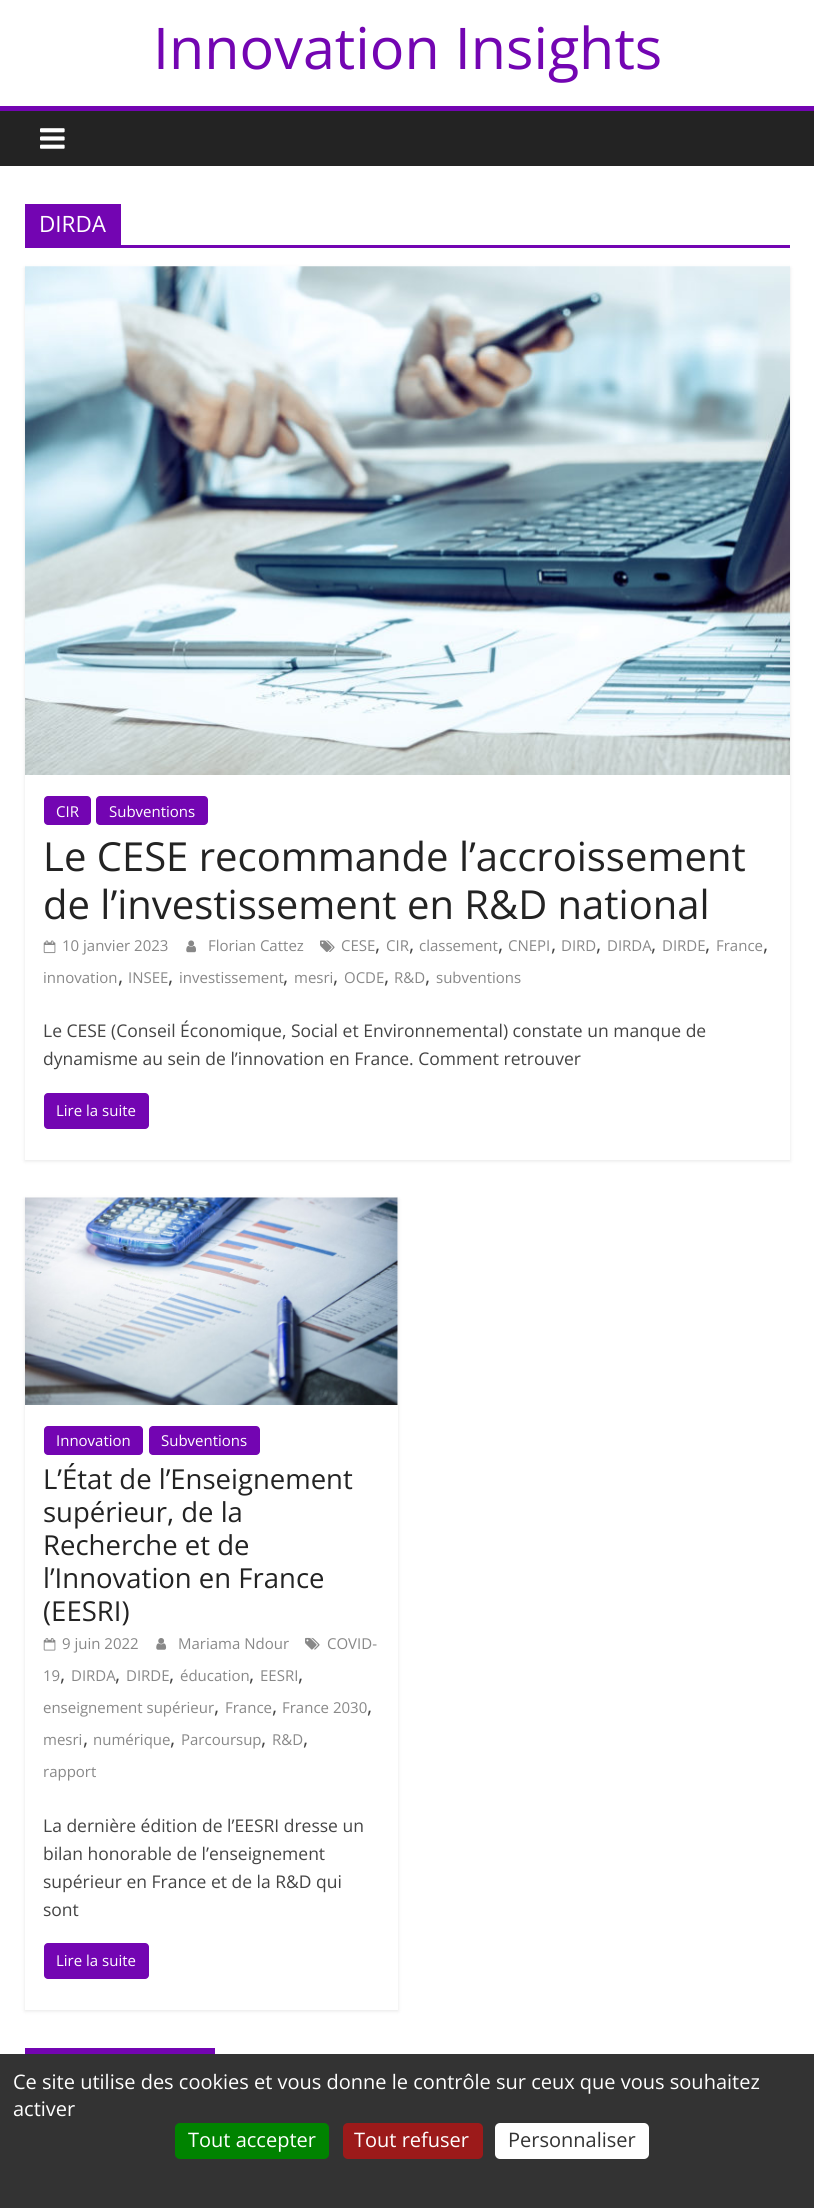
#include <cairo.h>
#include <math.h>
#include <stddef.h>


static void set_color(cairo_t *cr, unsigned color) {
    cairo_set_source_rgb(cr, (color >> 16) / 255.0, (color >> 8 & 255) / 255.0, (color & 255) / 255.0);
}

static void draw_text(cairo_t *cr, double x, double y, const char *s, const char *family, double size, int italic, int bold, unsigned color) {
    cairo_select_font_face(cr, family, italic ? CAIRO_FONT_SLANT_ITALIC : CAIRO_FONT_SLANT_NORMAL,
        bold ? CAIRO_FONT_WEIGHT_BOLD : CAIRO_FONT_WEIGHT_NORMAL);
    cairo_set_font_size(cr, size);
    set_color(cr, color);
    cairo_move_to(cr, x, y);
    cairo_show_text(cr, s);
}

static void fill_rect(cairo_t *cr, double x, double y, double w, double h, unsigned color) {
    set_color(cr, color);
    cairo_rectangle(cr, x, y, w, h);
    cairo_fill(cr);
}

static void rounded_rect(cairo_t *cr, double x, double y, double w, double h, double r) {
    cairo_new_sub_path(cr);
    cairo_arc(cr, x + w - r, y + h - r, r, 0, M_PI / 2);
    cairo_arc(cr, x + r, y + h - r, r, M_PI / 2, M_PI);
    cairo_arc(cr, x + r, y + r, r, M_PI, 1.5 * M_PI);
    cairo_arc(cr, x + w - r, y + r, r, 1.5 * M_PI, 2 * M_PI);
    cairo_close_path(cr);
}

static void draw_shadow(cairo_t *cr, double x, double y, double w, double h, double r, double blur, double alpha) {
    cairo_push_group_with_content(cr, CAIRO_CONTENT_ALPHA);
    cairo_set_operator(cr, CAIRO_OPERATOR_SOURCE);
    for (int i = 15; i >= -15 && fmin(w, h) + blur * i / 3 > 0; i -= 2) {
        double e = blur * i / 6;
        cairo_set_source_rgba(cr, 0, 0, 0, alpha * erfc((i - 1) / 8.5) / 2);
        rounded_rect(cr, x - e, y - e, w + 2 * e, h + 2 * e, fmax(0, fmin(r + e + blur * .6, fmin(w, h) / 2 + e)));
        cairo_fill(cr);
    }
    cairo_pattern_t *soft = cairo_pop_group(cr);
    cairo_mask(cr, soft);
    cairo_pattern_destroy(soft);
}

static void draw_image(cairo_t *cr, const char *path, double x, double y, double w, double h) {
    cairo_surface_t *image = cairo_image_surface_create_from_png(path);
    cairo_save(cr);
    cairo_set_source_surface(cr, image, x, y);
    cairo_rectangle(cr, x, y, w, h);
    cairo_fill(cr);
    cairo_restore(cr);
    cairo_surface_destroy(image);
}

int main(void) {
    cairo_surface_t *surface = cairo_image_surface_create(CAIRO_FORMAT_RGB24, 814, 2208);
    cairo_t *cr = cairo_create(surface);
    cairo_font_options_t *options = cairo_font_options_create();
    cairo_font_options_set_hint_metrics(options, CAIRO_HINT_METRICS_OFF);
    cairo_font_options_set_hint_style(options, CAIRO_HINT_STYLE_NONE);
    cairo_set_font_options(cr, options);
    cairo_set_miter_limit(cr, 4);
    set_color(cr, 0xFFFFFF);
    cairo_paint(cr);
    draw_text(cr, 153, 69, "Innovation Insights", "Open Sans", 57.5, 0, 0, 0x7305B2);
    fill_rect(cr, 0, 111, 814, 55, 0x232323);
    fill_rect(cr, 0, 106, 814, 5, 0x7305B2);
    draw_image(cr, "assets/img1.png", 40, 128, 25, 21);
    fill_rect(cr, 25, 245, 765, 3, 0x7305B2);
    fill_rect(cr, 25, 204, 96, 41, 0x7305B2);
    draw_text(cr, 39, 232, "DIRDA", "Open Sans", 22.5, 0, 0, 0xFFFFFF);
    cairo_save(cr);
    cairo_set_fill_rule(cr, CAIRO_FILL_RULE_EVEN_ODD);
    cairo_new_path(cr);
    cairo_move_to(cr, 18, 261);
    cairo_line_to(cr, 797, 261);
    cairo_line_to(cr, 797, 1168);
    cairo_line_to(cr, 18, 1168);
    cairo_close_path(cr);
    cairo_move_to(cr, 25, 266);
    cairo_line_to(cr, 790, 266);
    cairo_line_to(cr, 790, 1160);
    cairo_line_to(cr, 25, 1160);
    cairo_close_path(cr);
    cairo_clip(cr);
    set_color(cr, 0x000000);
    draw_shadow(cr, 25, 268, 765, 893, 0, 2, 0.1);
    cairo_restore(cr);
    draw_image(cr, "assets/img2.png", 25, 266, 765, 509);
    set_color(cr, 0x7305B2);
    rounded_rect(cr, 44, 796, 47, 29, 4);
    cairo_fill(cr);
    draw_text(cr, 56, 817, "CIR", "Open Sans", 15, 0, 0, 0xFFFFFF);
    set_color(cr, 0x7305B2);
    rounded_rect(cr, 96, 796, 112, 29, 4);
    cairo_fill(cr);
    draw_text(cr, 109, 817, "Subventions", "Open Sans", 15, 0, 0, 0xFFFFFF);
    draw_text(cr, 43, 871, "Le CESE recommande l’accroissement", "Open Sans", 40, 0, 0, 0x232323);
    draw_text(cr, 43, 919, "de l’investissement en R&D national", "Open Sans", 40, 0, 0, 0x232323);
    draw_image(cr, "assets/img3.png", 320, 940, 15, 12);
    draw_text(cr, 341, 951, "CESE", "Open Sans", 15, 0, 0, 0x888888);
    draw_text(cr, 375, 951, ",", "Open Sans", 20, 0, 0, 0x444444);
    draw_text(cr, 386, 951, "CIR", "Open Sans", 15, 0, 0, 0x888888);
    draw_text(cr, 409, 951, ",", "Open Sans", 20, 0, 0, 0x444444);
    draw_text(cr, 419, 951, "classement", "Open Sans", 15, 0, 0, 0x888888);
    draw_text(cr, 498, 951, ",", "Open Sans", 20, 0, 0, 0x444444);
    draw_text(cr, 508, 951, "CNEPI", "Open Sans", 15, 0, 0, 0x888888);
    draw_text(cr, 551, 951, ",", "Open Sans", 20, 0, 0, 0x444444);
    draw_text(cr, 561, 951, "DIRD", "Open Sans", 15, 0, 0, 0x888888);
    draw_text(cr, 596, 951, ",", "Open Sans", 20, 0, 0, 0x444444);
    draw_text(cr, 607, 951, "DIRDA", "Open Sans", 15, 0, 0, 0x888888);
    draw_text(cr, 651, 951, ",", "Open Sans", 20, 0, 0, 0x444444);
    draw_text(cr, 662, 951, "DIRDE", "Open Sans", 15, 0, 0, 0x888888);
    draw_text(cr, 705, 951, ",", "Open Sans", 20, 0, 0, 0x444444);
    draw_text(cr, 716, 951, "France", "Open Sans", 15, 0, 0, 0x888888);
    draw_text(cr, 763, 951, ",", "Open Sans", 20, 0, 0, 0x444444);
    draw_text(cr, 43, 983, "innovation", "Open Sans", 15, 0, 0, 0x888888);
    draw_text(cr, 118, 983, ",", "Open Sans", 20, 0, 0, 0x444444);
    draw_text(cr, 128, 983, "INSEE", "Open Sans", 15, 0, 0, 0x888888);
    draw_text(cr, 168, 983, ",", "Open Sans", 20, 0, 0, 0x444444);
    draw_text(cr, 179, 983, "investissement", "Open Sans", 15, 0, 0, 0x888888);
    draw_text(cr, 283, 983, ",", "Open Sans", 20, 0, 0, 0x444444);
    draw_text(cr, 294, 983, "mesri", "Open Sans", 15, 0, 0, 0x888888);
    draw_text(cr, 333, 983, ",", "Open Sans", 20, 0, 0, 0x444444);
    draw_text(cr, 344, 983, "OCDE", "Open Sans", 15, 0, 0, 0x888888);
    draw_text(cr, 384, 983, ",", "Open Sans", 20, 0, 0, 0x444444);
    draw_text(cr, 394, 983, "R&D", "Open Sans", 15, 0, 0, 0x888888);
    draw_text(cr, 425, 983, ",", "Open Sans", 20, 0, 0, 0x444444);
    draw_text(cr, 436, 983, "subventions", "Open Sans", 15, 0, 0, 0x888888);
    draw_image(cr, "assets/img4.png", 43, 940, 13, 14);
    draw_text(cr, 62, 951, "10 janvier 2023", "Open Sans", 15, 0, 0, 0x888888);
    draw_image(cr, "assets/img5.png", 186, 940, 10, 13);
    draw_text(cr, 208, 951, "Florian Cattez", "Open Sans", 15, 0, 0, 0x888888);
    draw_text(cr, 43, 1037, "Le CESE (Conseil Économique, Social et Environnemental) constate un manque de", "Open Sans", 17.5, 0, 0, 0x444444);
    draw_text(cr, 43, 1065, "dynamisme au sein de l’innovation en France. Comment retrouver", "Open Sans", 17.5, 0, 0, 0x444444);
    set_color(cr, 0x7305B2);
    rounded_rect(cr, 44, 1093, 105, 36, 4);
    cairo_fill(cr);
    draw_text(cr, 56, 1116, "Lire la suite", "Open Sans", 15, 0, 0, 0xFFFFFF);
    cairo_save(cr);
    cairo_set_fill_rule(cr, CAIRO_FILL_RULE_EVEN_ODD);
    cairo_new_path(cr);
    cairo_move_to(cr, 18, 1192);
    cairo_line_to(cr, 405, 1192);
    cairo_line_to(cr, 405, 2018);
    cairo_line_to(cr, 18, 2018);
    cairo_close_path(cr);
    cairo_move_to(cr, 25, 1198);
    cairo_line_to(cr, 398, 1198);
    cairo_line_to(cr, 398, 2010);
    cairo_line_to(cr, 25, 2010);
    cairo_close_path(cr);
    cairo_clip(cr);
    set_color(cr, 0x000000);
    draw_shadow(cr, 25, 1199, 373, 812, 0, 2, 0.1);
    cairo_restore(cr);
    draw_image(cr, "assets/img6.png", 25, 1197, 373, 208);
    set_color(cr, 0x7305B2);
    rounded_rect(cr, 44, 1426, 99, 29, 4);
    cairo_fill(cr);
    draw_text(cr, 56, 1446, "Innovation", "Open Sans", 15, 0, 0, 0xFFFFFF);
    set_color(cr, 0x7305B2);
    rounded_rect(cr, 149, 1426, 111, 29, 4);
    cairo_fill(cr);
    draw_text(cr, 161, 1446, "Subventions", "Open Sans", 15, 0, 0, 0xFFFFFF);
    draw_text(cr, 43, 1489, "L’État de l’Enseignement", "Open Sans", 27.5, 0, 0, 0x232323);
    draw_text(cr, 43, 1522, "supérieur, de la", "Open Sans", 27.5, 0, 0, 0x232323);
    draw_text(cr, 43, 1555, "Recherche et de", "Open Sans", 27.5, 0, 0, 0x232323);
    draw_text(cr, 43, 1588, "l’Innovation en France", "Open Sans", 27.5, 0, 0, 0x232323);
    draw_text(cr, 43, 1621, "(EESRI)", "Open Sans", 27.5, 0, 0, 0x232323);
    draw_image(cr, "assets/img7.png", 156, 1638, 11, 12);
    draw_text(cr, 178, 1649, "Mariama Ndour", "Open Sans", 15, 0, 0, 0x888888);
    draw_image(cr, "assets/img8.png", 305, 1637, 15, 13);
    draw_text(cr, 327, 1649, "COVID-", "Open Sans", 15, 0, 0, 0x888888);
    draw_text(cr, 43, 1681, "19", "Open Sans", 15, 0, 0, 0x888888);
    draw_text(cr, 60, 1681, ",", "Open Sans", 20, 0, 0, 0x444444);
    draw_text(cr, 71, 1681, "DIRDA", "Open Sans", 15, 0, 0, 0x888888);
    draw_text(cr, 115, 1681, ",", "Open Sans", 20, 0, 0, 0x444444);
    draw_text(cr, 126, 1681, "DIRDE", "Open Sans", 15, 0, 0, 0x888888);
    draw_text(cr, 169, 1681, ",", "Open Sans", 20, 0, 0, 0x444444);
    draw_text(cr, 180, 1681, "éducation", "Open Sans", 15, 0, 0, 0x888888);
    draw_text(cr, 249, 1681, ",", "Open Sans", 20, 0, 0, 0x444444);
    draw_text(cr, 260, 1681, "EESRI", "Open Sans", 15, 0, 0, 0x888888);
    draw_text(cr, 298, 1681, ",", "Open Sans", 20, 0, 0, 0x444444);
    draw_text(cr, 43, 1713, "enseignement supérieur", "Open Sans", 15, 0, 0, 0x888888);
    draw_text(cr, 214, 1713, ",", "Open Sans", 20, 0, 0, 0x444444);
    draw_text(cr, 225, 1713, "France", "Open Sans", 15, 0, 0, 0x888888);
    draw_text(cr, 272, 1713, ",", "Open Sans", 20, 0, 0, 0x444444);
    draw_text(cr, 282, 1713, "France 2030", "Open Sans", 15, 0, 0, 0x888888);
    draw_text(cr, 367, 1713, ",", "Open Sans", 20, 0, 0, 0x444444);
    draw_text(cr, 43, 1745, "mesri", "Open Sans", 15, 0, 0, 0x888888);
    draw_text(cr, 83, 1745, ",", "Open Sans", 20, 0, 0, 0x444444);
    draw_text(cr, 93, 1745, "numérique", "Open Sans", 15, 0, 0, 0x888888);
    draw_text(cr, 170, 1745, ",", "Open Sans", 20, 0, 0, 0x444444);
    draw_text(cr, 181, 1745, "Parcoursup", "Open Sans", 15, 0, 0, 0x888888);
    draw_text(cr, 261, 1745, ",", "Open Sans", 20, 0, 0, 0x444444);
    draw_text(cr, 272, 1745, "R&D", "Open Sans", 15, 0, 0, 0x888888);
    draw_text(cr, 303, 1745, ",", "Open Sans", 20, 0, 0, 0x444444);
    draw_text(cr, 43, 1777, "rapport", "Open Sans", 15, 0, 0, 0x888888);
    draw_image(cr, "assets/img9.png", 43, 1638, 13, 13);
    draw_text(cr, 62, 1649, "9 juin 2022", "Open Sans", 15, 0, 0, 0x888888);
    draw_text(cr, 43, 1832, "La dernière édition de l’EESRI dresse un", "Open Sans", 17.5, 0, 0, 0x444444);
    draw_text(cr, 43, 1860, "bilan honorable de l’enseignement", "Open Sans", 17.5, 0, 0, 0x444444);
    draw_text(cr, 43, 1888, "supérieur en France et de la R&D qui", "Open Sans", 17.5, 0, 0, 0x444444);
    draw_text(cr, 43, 1916, "sont", "Open Sans", 17.5, 0, 0, 0x444444);
    set_color(cr, 0x7305B2);
    rounded_rect(cr, 44, 1943, 105, 36, 4);
    cairo_fill(cr);
    draw_text(cr, 56, 1966, "Lire la suite", "Open Sans", 15, 0, 0, 0xFFFFFF);
    fill_rect(cr, 25, 2048, 190, 6, 0x7305B2);
    fill_rect(cr, 0, 2054, 814, 154, 0x333333);
    draw_text(cr, 13, 2089, "Ce site utilise des cookies et vous donne le contrôle sur ceux que vous souhaitez", "Open Sans", 20, 0, 0, 0xFFFFFF);
    draw_text(cr, 13, 2116, "activer", "Open Sans", 20, 0, 0, 0xFFFFFF);
    set_color(cr, 0x008300);
    rounded_rect(cr, 175, 2123, 154, 36, 5);
    cairo_fill(cr);
    draw_text(cr, 188, 2147, "Tout accepter", "Open Sans", 20, 0, 0, 0xFFFFFF);
    set_color(cr, 0x9C1A1A);
    rounded_rect(cr, 343, 2123, 140, 36, 5);
    cairo_fill(cr);
    draw_text(cr, 354, 2147, "Tout refuser", "Open Sans", 20, 0, 0, 0xFFFFFF);
    rounded_rect(cr, 495, 2123, 154, 36, 5);
    cairo_fill(cr);
    draw_text(cr, 508, 2147, "Personnaliser", "Open Sans", 20, 0, 0, 0x333333);
    cairo_surface_write_to_png(surface, "output.png");
    cairo_font_options_destroy(options);
    cairo_destroy(cr);
    cairo_surface_destroy(surface);
    return 0;
}
